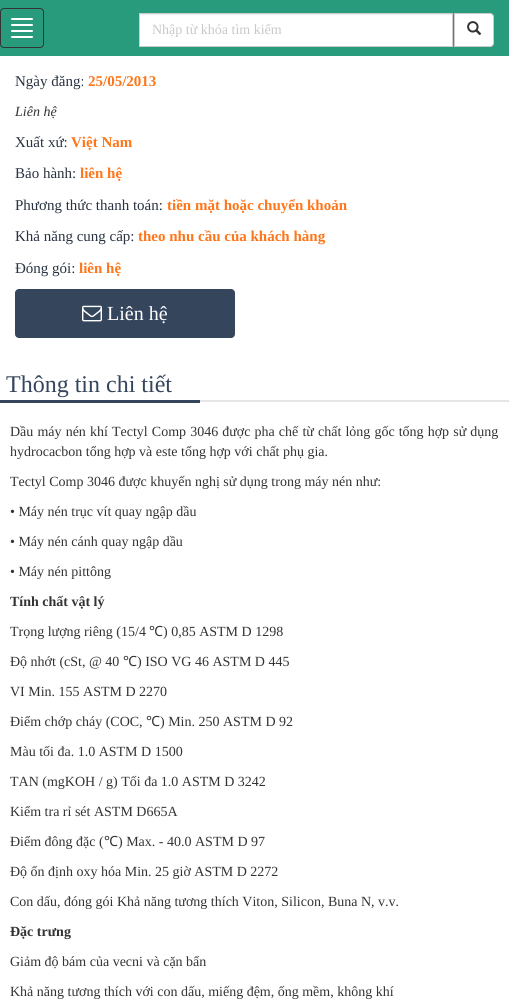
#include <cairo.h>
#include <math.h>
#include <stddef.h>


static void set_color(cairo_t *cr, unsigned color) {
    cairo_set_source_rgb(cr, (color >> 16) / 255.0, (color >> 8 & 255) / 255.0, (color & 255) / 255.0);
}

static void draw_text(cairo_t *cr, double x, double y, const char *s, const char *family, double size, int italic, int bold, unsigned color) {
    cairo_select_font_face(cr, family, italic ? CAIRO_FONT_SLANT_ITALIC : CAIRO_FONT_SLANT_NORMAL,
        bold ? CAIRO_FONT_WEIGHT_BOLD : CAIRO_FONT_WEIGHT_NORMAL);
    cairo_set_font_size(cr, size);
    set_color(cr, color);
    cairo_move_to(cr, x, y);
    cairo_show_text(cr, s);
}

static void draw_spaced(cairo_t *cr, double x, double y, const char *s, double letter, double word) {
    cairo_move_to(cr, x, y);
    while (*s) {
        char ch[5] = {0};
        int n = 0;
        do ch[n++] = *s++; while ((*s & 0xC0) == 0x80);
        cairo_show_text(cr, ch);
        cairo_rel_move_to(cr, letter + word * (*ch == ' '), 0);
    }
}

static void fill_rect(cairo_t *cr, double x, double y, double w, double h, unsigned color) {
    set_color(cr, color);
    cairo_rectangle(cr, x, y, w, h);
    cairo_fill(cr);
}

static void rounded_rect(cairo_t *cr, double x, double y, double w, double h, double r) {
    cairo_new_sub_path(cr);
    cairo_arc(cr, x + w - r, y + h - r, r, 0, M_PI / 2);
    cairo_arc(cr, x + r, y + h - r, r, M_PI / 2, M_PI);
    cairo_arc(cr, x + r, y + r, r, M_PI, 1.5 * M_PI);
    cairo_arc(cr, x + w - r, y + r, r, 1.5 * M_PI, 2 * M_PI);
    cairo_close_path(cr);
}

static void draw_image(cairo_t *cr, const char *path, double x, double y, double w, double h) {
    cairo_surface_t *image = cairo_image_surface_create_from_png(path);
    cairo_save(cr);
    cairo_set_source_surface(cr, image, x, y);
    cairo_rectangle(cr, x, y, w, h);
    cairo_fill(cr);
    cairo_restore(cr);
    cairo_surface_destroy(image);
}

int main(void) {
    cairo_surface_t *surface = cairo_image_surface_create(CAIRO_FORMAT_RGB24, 509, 1002);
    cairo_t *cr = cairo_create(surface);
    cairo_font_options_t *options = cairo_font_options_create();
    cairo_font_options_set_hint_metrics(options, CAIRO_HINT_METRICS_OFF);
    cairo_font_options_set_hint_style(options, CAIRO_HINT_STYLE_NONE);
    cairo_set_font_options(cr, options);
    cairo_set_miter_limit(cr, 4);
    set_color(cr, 0xFFFFFF);
    cairo_paint(cr);
    fill_rect(cr, 0, 0, 509, 56, 0x289B7C);
    rounded_rect(cr, 0.5, 8.5, 43, 39, 3.5);
    set_color(cr, 0x333333);
    cairo_set_line_width(cr, 1);
    cairo_stroke(cr);
    set_color(cr, 0xFFFFFF);
    rounded_rect(cr, 11, 18, 22, 2, 1);
    cairo_fill(cr);
    rounded_rect(cr, 11, 24, 22, 2, 1);
    cairo_fill(cr);
    rounded_rect(cr, 11, 30, 22, 2, 1);
    cairo_fill(cr);
    rounded_rect(cr, 11, 36, 22, 2, 1);
    cairo_fill(cr);
    fill_rect(cr, 140, 15, 312, 31, 0xFFFFFF);
    fill_rect(cr, 140, 14, 312, 1, 0xECECEC);
    cairo_rectangle(cr, 139.5, 13.5, 313, 33);
    set_color(cr, 0xCCCCCC);
    cairo_stroke(cr);
    draw_text(cr, 152, 34, "Nhập từ khóa tìm kiếm", "Liberation Serif", 14, 0, 0, 0xC8C8C8);
    set_color(cr, 0xFFFFFF);
    cairo_new_path(cr);
    cairo_move_to(cr, 454.5, 13.5);
    cairo_line_to(cr, 490, 13.5);
    cairo_curve_to(cr, 492, 13.5, 493.5, 15, 493.5, 17);
    cairo_line_to(cr, 493.5, 43);
    cairo_curve_to(cr, 493.5, 45, 492, 46.5, 490, 46.5);
    cairo_line_to(cr, 454.5, 46.5);
    cairo_close_path(cr);
    cairo_fill_preserve(cr);
    set_color(cr, 0xCCCCCC);
    cairo_stroke(cr);
    draw_image(cr, "assets/img1.png", 467, 21, 15, 14);
    draw_text(cr, 15, 86, "Ngày đăng:", "Liberation Serif", 15, 0, 0, 0x283240);
    draw_text(cr, 88, 86, "25/05/2013", "Liberation Serif", 15, 0, 1, 0xFF7519);
    draw_text(cr, 15, 116, "Liên hệ", "Liberation Serif", 14, 1, 0, 0x333333);
    draw_text(cr, 15, 147, "Xuất xứ:", "Liberation Serif", 15, 0, 0, 0x283240);
    draw_text(cr, 71, 147, "Việt Nam", "Liberation Serif", 15, 0, 1, 0xFF7519);
    draw_text(cr, 15, 178, "Bảo hành:", "Liberation Serif", 15, 0, 0, 0x283240);
    draw_text(cr, 80, 178, "liên hệ", "Liberation Serif", 15, 0, 1, 0xFF7519);
    draw_text(cr, 15, 210, "Phương thức thanh toán:", "Liberation Serif", 15, 0, 0, 0x283240);
    draw_text(cr, 167, 210, "tiền mặt hoặc chuyển khoản", "Liberation Serif", 15, 0, 1, 0xFF7519);
    draw_text(cr, 15, 241, "Khả năng cung cấp:", "Liberation Serif", 15, 0, 0, 0x283240);
    draw_text(cr, 138, 241, "theo nhu cầu của khách hàng", "Liberation Serif", 15, 0, 1, 0xFF7519);
    draw_text(cr, 15, 273, "Đóng gói:", "Liberation Serif", 15, 0, 0, 0x283240);
    draw_text(cr, 79, 273, "liên hệ", "Liberation Serif", 15, 0, 1, 0xFF7519);
    set_color(cr, 0x35455C);
    rounded_rect(cr, 15.5, 289.5, 219, 48, 3.5);
    cairo_fill_preserve(cr);
    cairo_stroke(cr);
    draw_image(cr, "assets/img2.png", 82, 305, 20, 17);
    draw_text(cr, 107, 320, "Liên hệ", "Liberation Serif", 20, 0, 0, 0xFFFFFF);
    fill_rect(cr, 200, 400, 309, 2, 0xE5E5E5);
    draw_text(cr, 6, 392, "Thông tin chi tiết", "Liberation Serif", 24, 0, 0, 0x35455C);
    fill_rect(cr, 0, 400, 200, 3, 0x35455C);
    cairo_set_font_size(cr, 14);
    set_color(cr, 0x333333);
    draw_spaced(cr, 10, 436, "Dầu máy nén khí Tectyl Comp 3046 được pha chế từ chất lỏng gốc tổng hợp sử dụng", 0, 0.6);
    draw_text(cr, 10, 456, "hydrocacbon tổng hợp và este tổng hợp với chất phụ gia.", "Liberation Serif", 14, 0, 0, 0x333333);
    draw_text(cr, 10, 486, "Tectyl Comp 3046 được khuyến nghị sử dụng trong máy nén như:", "Liberation Serif", 14, 0, 0, 0x333333);
    draw_text(cr, 10, 516, "• Máy nén trục vít quay ngập dầu", "Liberation Serif", 14, 0, 0, 0x333333);
    draw_text(cr, 10, 546, "• Máy nén cánh quay ngập dầu", "Liberation Serif", 14, 0, 0, 0x333333);
    draw_text(cr, 10, 576, "• Máy nén pittông", "Liberation Serif", 14, 0, 0, 0x333333);
    draw_text(cr, 10, 606, "Tính chất vật lý", "Liberation Serif", 14, 0, 1, 0x333333);
    draw_text(cr, 10, 636, "Trọng lượng riêng (15/4", "Liberation Serif", 14, 0, 0, 0x333333);
    draw_text(cr, 149, 636, "℃", "Noto Sans", 14, 0, 0, 0x333333);
    draw_text(cr, 163, 636, ") 0,85 ASTM D 1298", "Liberation Serif", 14, 0, 0, 0x333333);
    draw_text(cr, 10, 666, "Độ nhớt (cSt, @ 40", "Liberation Serif", 14, 0, 0, 0x333333);
    draw_text(cr, 123, 666, "℃", "Noto Sans", 14, 0, 0, 0x333333);
    draw_text(cr, 137, 666, ") ISO VG 46 ASTM D 445", "Liberation Serif", 14, 0, 0, 0x333333);
    draw_text(cr, 10, 696, "VI Min. 155 ASTM D 2270", "Liberation Serif", 14, 0, 0, 0x333333);
    draw_text(cr, 10, 726, "Điểm chớp cháy (COC,", "Liberation Serif", 14, 0, 0, 0x333333);
    draw_text(cr, 146, 726, "℃", "Noto Sans", 14, 0, 0, 0x333333);
    draw_text(cr, 160, 726, ") Min. 250 ASTM D 92", "Liberation Serif", 14, 0, 0, 0x333333);
    draw_text(cr, 10, 756, "Màu tối đa. 1.0 ASTM D 1500", "Liberation Serif", 14, 0, 0, 0x333333);
    draw_text(cr, 10, 786, "TAN (mgKOH / g) Tối đa 1.0 ASTM D 3242", "Liberation Serif", 14, 0, 0, 0x333333);
    draw_text(cr, 10, 816, "Kiểm tra rỉ sét ASTM D665A", "Liberation Serif", 14, 0, 0, 0x333333);
    draw_text(cr, 10, 846, "Điểm đông đặc (", "Liberation Serif", 14, 0, 0, 0x333333);
    draw_text(cr, 104, 846, "℃", "Noto Sans", 14, 0, 0, 0x333333);
    draw_text(cr, 118, 846, ") Max. - 40.0 ASTM D 97", "Liberation Serif", 14, 0, 0, 0x333333);
    draw_text(cr, 10, 876, "Độ ổn định oxy hóa Min. 25 giờ ASTM D 2272", "Liberation Serif", 14, 0, 0, 0x333333);
    draw_text(cr, 10, 906, "Con dấu, đóng gói Khả năng tương thích Viton, Silicon, Buna N, v.v.", "Liberation Serif", 14, 0, 0, 0x333333);
    draw_text(cr, 10, 936, "Đặc trưng", "Liberation Serif", 14, 0, 1, 0x333333);
    draw_text(cr, 10, 966, "Giảm độ bám của vecni và cặn bẩn", "Liberation Serif", 14, 0, 0, 0x333333);
    draw_text(cr, 10, 996, "Khả năng tương thích với con dấu, miếng đệm, ống mềm, không khí", "Liberation Serif", 14, 0, 0, 0x333333);
    cairo_surface_write_to_png(surface, "output.png");
    cairo_font_options_destroy(options);
    cairo_destroy(cr);
    cairo_surface_destroy(surface);
    return 0;
}
